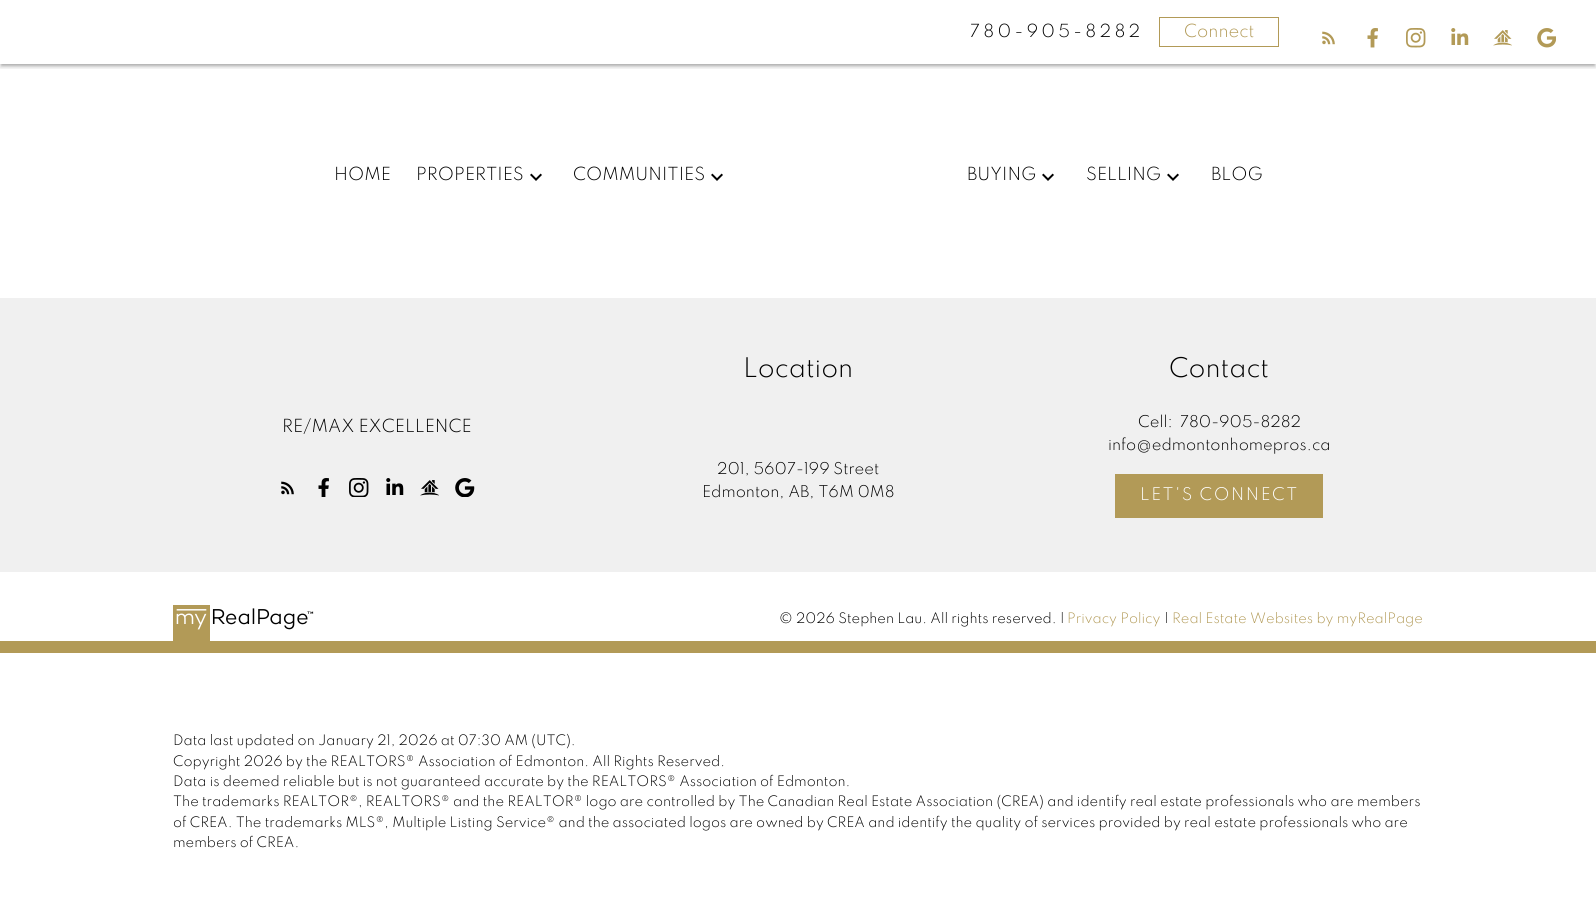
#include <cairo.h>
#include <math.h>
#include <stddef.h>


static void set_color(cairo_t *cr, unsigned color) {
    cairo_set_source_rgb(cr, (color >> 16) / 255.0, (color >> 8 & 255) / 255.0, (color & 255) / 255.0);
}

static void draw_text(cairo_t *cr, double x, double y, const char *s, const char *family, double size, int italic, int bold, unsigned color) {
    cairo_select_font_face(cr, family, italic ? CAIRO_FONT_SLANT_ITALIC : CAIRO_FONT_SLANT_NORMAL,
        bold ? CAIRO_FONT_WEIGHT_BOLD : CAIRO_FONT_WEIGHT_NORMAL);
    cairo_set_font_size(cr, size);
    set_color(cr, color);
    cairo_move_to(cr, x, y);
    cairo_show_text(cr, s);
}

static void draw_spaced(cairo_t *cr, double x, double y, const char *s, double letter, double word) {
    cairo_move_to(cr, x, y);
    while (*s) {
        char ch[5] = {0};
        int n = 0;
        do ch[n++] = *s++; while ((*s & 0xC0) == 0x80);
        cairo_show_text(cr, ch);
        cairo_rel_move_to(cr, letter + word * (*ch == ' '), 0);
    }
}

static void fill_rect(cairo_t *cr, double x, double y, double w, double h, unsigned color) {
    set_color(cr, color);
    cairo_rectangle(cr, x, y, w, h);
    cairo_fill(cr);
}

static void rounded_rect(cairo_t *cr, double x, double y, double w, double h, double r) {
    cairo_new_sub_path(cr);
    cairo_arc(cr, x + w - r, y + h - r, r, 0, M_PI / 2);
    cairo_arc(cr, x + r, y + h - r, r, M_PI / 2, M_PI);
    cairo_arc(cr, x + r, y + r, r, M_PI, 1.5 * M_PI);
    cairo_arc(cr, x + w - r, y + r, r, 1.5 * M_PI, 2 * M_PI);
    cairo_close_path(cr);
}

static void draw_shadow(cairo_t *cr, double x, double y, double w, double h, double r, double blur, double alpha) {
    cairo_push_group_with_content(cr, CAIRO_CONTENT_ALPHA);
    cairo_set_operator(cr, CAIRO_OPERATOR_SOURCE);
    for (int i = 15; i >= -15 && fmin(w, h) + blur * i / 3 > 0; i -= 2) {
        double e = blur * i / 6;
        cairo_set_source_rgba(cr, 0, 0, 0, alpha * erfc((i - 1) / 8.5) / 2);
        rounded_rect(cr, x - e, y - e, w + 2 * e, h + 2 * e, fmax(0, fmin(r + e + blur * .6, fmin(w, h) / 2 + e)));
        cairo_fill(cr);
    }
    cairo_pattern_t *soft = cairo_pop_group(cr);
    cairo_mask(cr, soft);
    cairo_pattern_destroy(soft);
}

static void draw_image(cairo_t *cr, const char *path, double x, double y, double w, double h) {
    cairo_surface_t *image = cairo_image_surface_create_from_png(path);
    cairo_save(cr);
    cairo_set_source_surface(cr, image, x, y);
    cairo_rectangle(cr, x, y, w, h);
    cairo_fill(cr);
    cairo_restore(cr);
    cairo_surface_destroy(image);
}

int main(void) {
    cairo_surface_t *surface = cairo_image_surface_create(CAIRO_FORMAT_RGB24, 1596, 922);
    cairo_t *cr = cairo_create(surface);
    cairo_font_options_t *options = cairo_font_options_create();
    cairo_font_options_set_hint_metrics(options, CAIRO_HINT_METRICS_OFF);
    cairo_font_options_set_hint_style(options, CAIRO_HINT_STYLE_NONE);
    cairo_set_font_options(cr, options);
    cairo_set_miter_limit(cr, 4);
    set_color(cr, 0xFFFFFF);
    cairo_paint(cr);
    cairo_save(cr);
    cairo_rectangle(cr, 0, 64, 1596, 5);
    cairo_clip(cr);
    set_color(cr, 0x000000);
    draw_shadow(cr, 0, 1, 1596, 64, 0, 4, 0.12);
    draw_shadow(cr, 0, 3, 1596, 64, 0, 2, 0.14);
    cairo_restore(cr);
    cairo_save(cr);
    cairo_rectangle(cr, 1, 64, 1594, 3);
    cairo_clip(cr);
    set_color(cr, 0x000000);
    draw_shadow(cr, 2, 5, 1592, 60, 0, 1.5, 0.2);
    cairo_restore(cr);
    cairo_select_font_face(cr, "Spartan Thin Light", CAIRO_FONT_SLANT_NORMAL, CAIRO_FONT_WEIGHT_NORMAL);
    cairo_set_font_size(cr, 16);
    set_color(cr, 0x000000);
    draw_spaced(cr, 970, 37, "780-905-8282", 3.25, 0);
    cairo_rectangle(cr, 1159.5, 17.5, 119, 29);
    set_color(cr, 0xB29A57);
    cairo_set_line_width(cr, 1);
    cairo_stroke(cr);
    draw_text(cr, 1184, 37, "Connect", "Spartan Thin Light", 16, 0, 0, 0xB29A57);
    draw_image(cr, "assets/img1.png", 1322, 31, 13, 14);
    draw_image(cr, "assets/img2.png", 1367, 28, 11, 20);
    draw_image(cr, "assets/img3.png", 1406, 28, 20, 20);
    draw_image(cr, "assets/img4.png", 1451, 28, 18, 17);
    draw_image(cr, "assets/img5.png", 1493, 30, 19, 16);
    draw_image(cr, "assets/img6.png", 1537, 28, 19, 20);
    draw_text(cr, 334, 180, "HOME", "Spartan Thin Light", 16, 0, 0, 0x000000);
    draw_text(cr, 416, 180, "PROPERTIES", "Spartan Thin Light", 16, 0, 0, 0x000000);
    draw_image(cr, "assets/img7.png", 530, 173, 12, 8);
    draw_text(cr, 573, 180, "COMMUNITIES", "Spartan Thin Light", 16, 0, 0, 0x000000);
    draw_image(cr, "assets/img7.png", 711, 173, 12, 8);
    draw_text(cr, 967, 180, "BUYING", "Spartan Thin Light", 16, 0, 0, 0x000000);
    draw_image(cr, "assets/img7.png", 1042, 173, 12, 8);
    draw_text(cr, 1086, 180, "SELLING", "Spartan Thin Light", 16, 0, 0, 0x000000);
    draw_image(cr, "assets/img7.png", 1167, 173, 12, 8);
    draw_text(cr, 1211, 180, "BLOG", "Spartan Thin Light", 16, 0, 0, 0x000000);
    fill_rect(cr, 0, 298, 1596, 274, 0xF0F0F0);
    draw_text(cr, 282, 432, "RE/MAX EXCELLENCE", "Spartan Thin Light", 16, 0, 0, 0x000000);
    draw_image(cr, "assets/img8.png", 281, 481, 13, 14);
    draw_image(cr, "assets/img9.png", 318, 478, 11, 19);
    draw_image(cr, "assets/img10.png", 349, 478, 20, 19);
    draw_image(cr, "assets/img11.png", 386, 478, 18, 17);
    draw_image(cr, "assets/img12.png", 420, 480, 19, 16);
    draw_image(cr, "assets/img13.png", 455, 478, 20, 19);
    draw_text(cr, 743, 377, "Location", "Spartan Thin Light", 24, 0, 0, 0x000000);
    draw_text(cr, 717, 474, "201, 5607-199 Street", "Spartan Thin Light", 14.4, 0, 0, 0x000000);
    draw_text(cr, 702, 497, "Edmonton, AB, T6M 0M8", "Spartan Thin Light", 14.4, 0, 0, 0x000000);
    draw_text(cr, 1169, 377, "Contact", "Spartan Thin Light", 24, 0, 0, 0x000000);
    draw_text(cr, 1138, 427, "Cell:", "Spartan Thin Light", 14.4, 0, 0, 0x000000);
    draw_text(cr, 1180, 427, "780-905-8282", "Spartan Thin Light", 14.4, 0, 0, 0x000000);
    draw_text(cr, 1108, 450, "info@edmontonhomepros.ca", "Spartan Thin Light", 14.4, 0, 0, 0x000000);
    fill_rect(cr, 1115, 474, 208, 44, 0xB29A57);
    cairo_set_font_size(cr, 15.5);
    set_color(cr, 0xFFFFFF);
    draw_spaced(cr, 1140, 500, "LET'S CONNECT", 1.6, 0);
    draw_image(cr, "assets/img14.png", 173, 605, 141, 36);
    draw_text(cr, 779, 623, "© 2026 Stephen Lau. All rights reserved. |", "Spartan Thin Light", 12.8, 0, 0, 0x000000);
    draw_text(cr, 1067, 623, "Privacy Policy", "Spartan Thin Light", 12.8, 0, 0, 0xB29A57);
    draw_text(cr, 1164, 623, "|", "Spartan Thin Light", 12.8, 0, 0, 0x000000);
    draw_text(cr, 1172, 623, "Real Estate Websites by myRealPage", "Spartan Thin Light", 12.8, 0, 0, 0xB29A57);
    fill_rect(cr, 0, 641, 1596, 12, 0xB29A57);
    draw_text(cr, 173, 745, "Data last updated on January 21, 2026 at 07:30 AM (UTC).", "Spartan Thin Light", 12.8, 0, 0, 0x000000);
    draw_text(cr, 173, 766, "Copyright 2026 by the REALTORS® Association of Edmonton. All Rights Reserved.", "Spartan Thin Light", 12.8, 0, 0, 0x000000);
    draw_text(cr, 173, 786, "Data is deemed reliable but is not guaranteed accurate by the REALTORS® Association of Edmonton.", "Spartan Thin Light", 12.8, 0, 0, 0x000000);
    draw_text(cr, 173, 806, "The trademarks REALTOR®, REALTORS® and the REALTOR® logo are controlled by The Canadian Real Estate Association (CREA) and identify real estate professionals who are members", "Spartan Thin Light", 12.8, 0, 0, 0x000000);
    draw_text(cr, 173, 827, "of CREA. The trademarks MLS®, Multiple Listing Service® and the associated logos are owned by CREA and identify the quality of services provided by real estate professionals who are", "Spartan Thin Light", 12.8, 0, 0, 0x000000);
    draw_text(cr, 173, 847, "members of CREA.", "Spartan Thin Light", 12.8, 0, 0, 0x000000);
    cairo_surface_write_to_png(surface, "output.png");
    cairo_font_options_destroy(options);
    cairo_destroy(cr);
    cairo_surface_destroy(surface);
    return 0;
}
